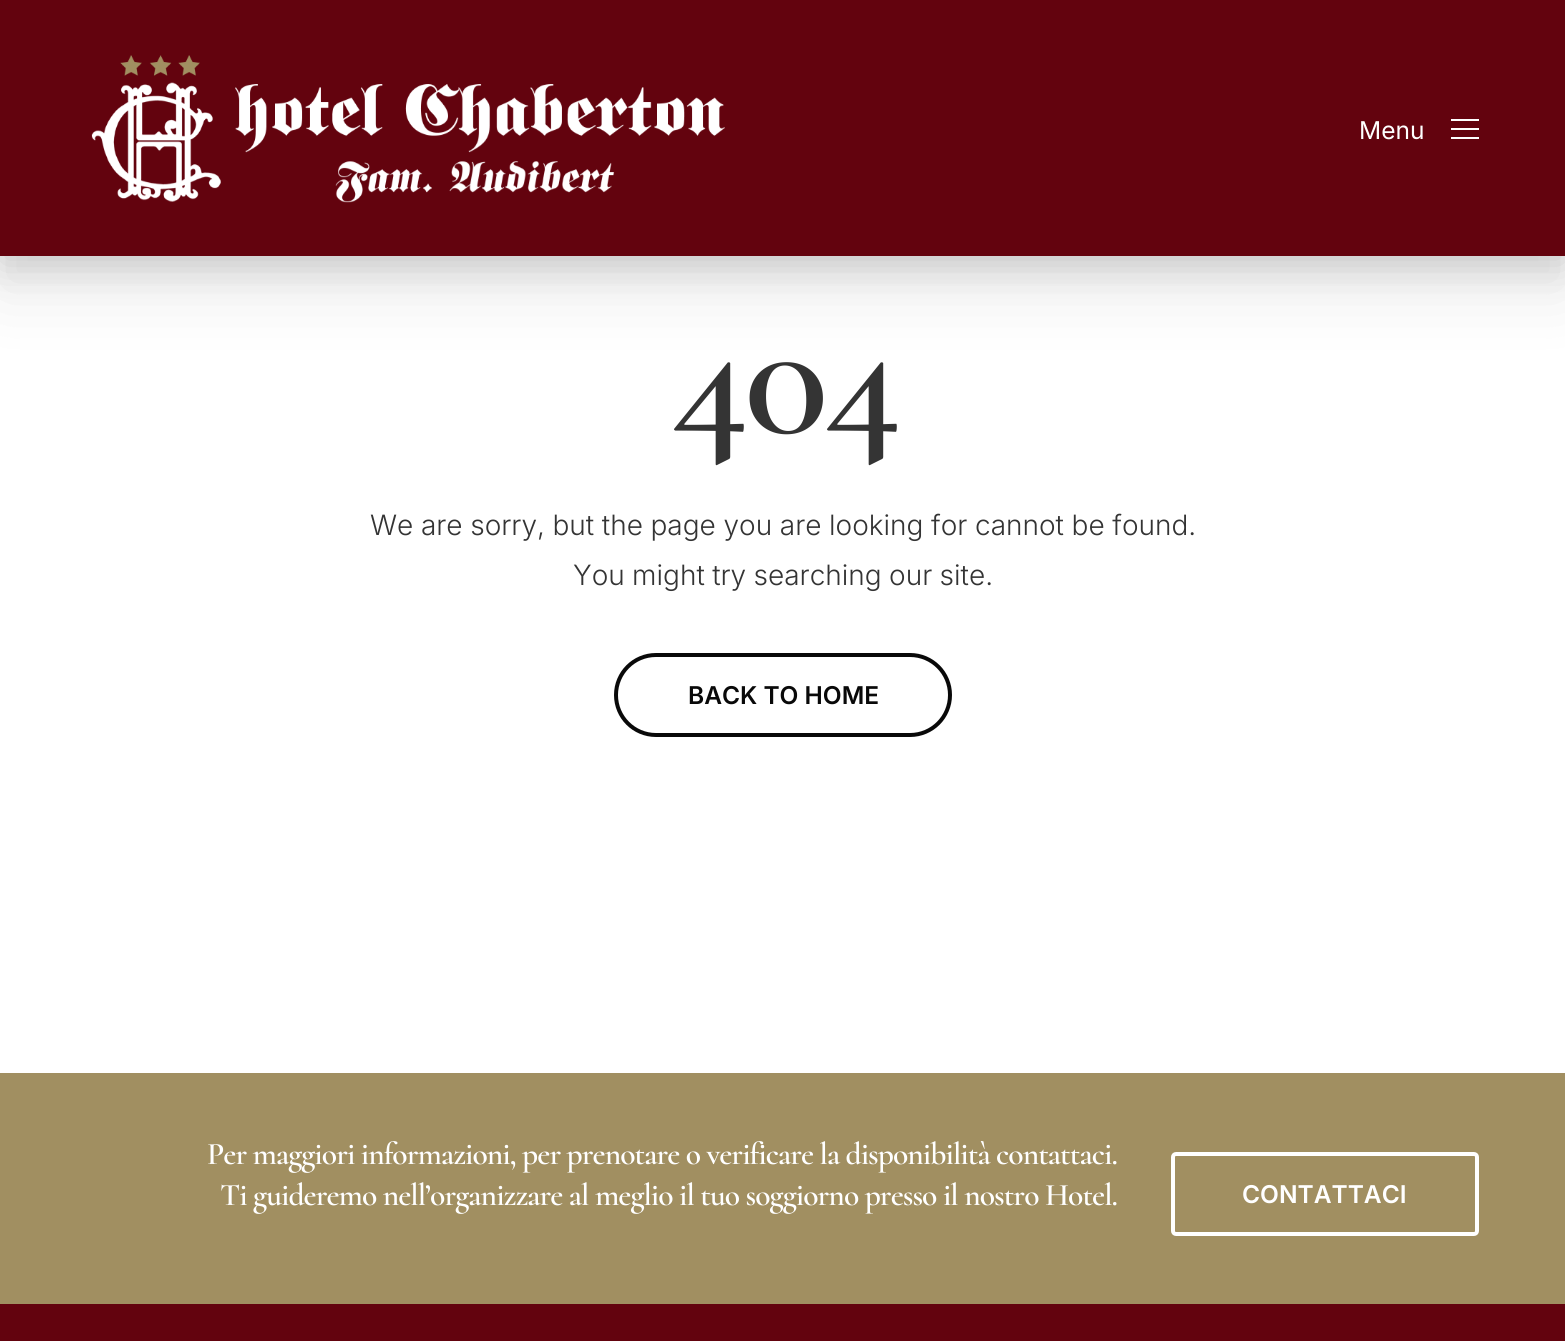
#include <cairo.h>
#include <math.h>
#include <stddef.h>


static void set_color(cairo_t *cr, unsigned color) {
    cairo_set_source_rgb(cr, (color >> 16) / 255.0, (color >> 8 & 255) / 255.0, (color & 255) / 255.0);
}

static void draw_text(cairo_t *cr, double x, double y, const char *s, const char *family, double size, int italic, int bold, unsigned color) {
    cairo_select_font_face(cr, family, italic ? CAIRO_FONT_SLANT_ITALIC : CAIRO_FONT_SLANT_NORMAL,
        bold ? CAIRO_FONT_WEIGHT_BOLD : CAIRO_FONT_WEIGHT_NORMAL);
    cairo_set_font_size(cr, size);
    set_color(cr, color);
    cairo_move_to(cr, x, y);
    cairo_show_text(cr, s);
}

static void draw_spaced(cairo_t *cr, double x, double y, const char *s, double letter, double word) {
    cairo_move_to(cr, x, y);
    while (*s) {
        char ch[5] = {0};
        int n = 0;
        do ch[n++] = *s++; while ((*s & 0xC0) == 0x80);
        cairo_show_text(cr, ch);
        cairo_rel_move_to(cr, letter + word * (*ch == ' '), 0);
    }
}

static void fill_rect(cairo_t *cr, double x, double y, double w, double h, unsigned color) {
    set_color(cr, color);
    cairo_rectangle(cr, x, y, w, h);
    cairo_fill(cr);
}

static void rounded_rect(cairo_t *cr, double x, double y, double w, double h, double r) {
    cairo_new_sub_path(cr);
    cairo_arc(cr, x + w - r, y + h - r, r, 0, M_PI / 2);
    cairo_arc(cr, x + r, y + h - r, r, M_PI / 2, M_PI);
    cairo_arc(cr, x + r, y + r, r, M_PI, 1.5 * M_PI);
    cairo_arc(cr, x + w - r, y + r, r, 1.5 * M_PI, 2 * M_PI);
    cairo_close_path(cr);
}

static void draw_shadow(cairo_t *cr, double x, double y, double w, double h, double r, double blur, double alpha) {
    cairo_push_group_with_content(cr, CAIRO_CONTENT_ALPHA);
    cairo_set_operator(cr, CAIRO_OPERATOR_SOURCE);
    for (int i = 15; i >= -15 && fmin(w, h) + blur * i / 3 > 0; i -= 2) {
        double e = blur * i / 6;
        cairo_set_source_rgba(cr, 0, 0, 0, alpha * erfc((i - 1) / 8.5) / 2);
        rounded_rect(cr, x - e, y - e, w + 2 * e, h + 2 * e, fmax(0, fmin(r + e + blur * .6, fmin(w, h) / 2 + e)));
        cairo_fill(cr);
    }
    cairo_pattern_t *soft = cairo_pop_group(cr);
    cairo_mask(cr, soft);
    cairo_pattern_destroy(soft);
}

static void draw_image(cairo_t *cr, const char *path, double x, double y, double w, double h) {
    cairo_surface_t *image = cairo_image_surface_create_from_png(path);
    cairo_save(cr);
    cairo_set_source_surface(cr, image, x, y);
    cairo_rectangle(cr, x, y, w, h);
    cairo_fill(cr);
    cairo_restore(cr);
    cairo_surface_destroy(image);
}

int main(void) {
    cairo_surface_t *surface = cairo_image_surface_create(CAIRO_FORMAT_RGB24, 1565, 1341);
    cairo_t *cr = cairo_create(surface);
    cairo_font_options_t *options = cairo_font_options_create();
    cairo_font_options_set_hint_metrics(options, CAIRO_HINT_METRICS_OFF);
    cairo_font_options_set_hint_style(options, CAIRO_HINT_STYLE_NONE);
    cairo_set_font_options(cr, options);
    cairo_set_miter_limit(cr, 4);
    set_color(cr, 0xFFFFFF);
    cairo_paint(cr);
    fill_rect(cr, 0, 0, 1565, 256, 0x63030E);
    cairo_save(cr);
    cairo_set_fill_rule(cr, CAIRO_FILL_RULE_EVEN_ODD);
    cairo_new_path(cr);
    cairo_move_to(cr, 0, 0);
    cairo_line_to(cr, 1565, 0);
    cairo_line_to(cr, 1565, 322);
    cairo_line_to(cr, 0, 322);
    cairo_close_path(cr);
    cairo_move_to(cr, 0, 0);
    cairo_line_to(cr, 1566, 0);
    cairo_line_to(cr, 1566, 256);
    cairo_line_to(cr, 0, 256);
    cairo_close_path(cr);
    cairo_clip(cr);
    set_color(cr, 0x000000);
    draw_shadow(cr, 0, 9, 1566, 255, 0, 19, 0.15);
    cairo_restore(cr);
    cairo_save(cr);
    cairo_set_fill_rule(cr, CAIRO_FILL_RULE_EVEN_ODD);
    cairo_new_path(cr);
    cairo_move_to(cr, 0, 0);
    cairo_line_to(cr, 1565, 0);
    cairo_line_to(cr, 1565, 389);
    cairo_line_to(cr, 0, 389);
    cairo_close_path(cr);
    cairo_move_to(cr, 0, 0);
    cairo_line_to(cr, 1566, 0);
    cairo_line_to(cr, 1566, 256);
    cairo_line_to(cr, 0, 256);
    cairo_close_path(cr);
    cairo_clip(cr);
    set_color(cr, 0x000000);
    draw_shadow(cr, 0, 33, 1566, 256, 0, 33, 0.1);
    cairo_restore(cr);
    draw_image(cr, "assets/img1.png", 91, 55, 634, 148);
    draw_text(cr, 1359, 139, "Menu", "Inter", 24.5, 0, 0, 0xFFFFFF);
    fill_rect(cr, 1451, 119, 28, 2, 0xFFFFFF);
    fill_rect(cr, 1451, 128, 28, 2, 0xFFFFFF);
    fill_rect(cr, 1451, 137, 28, 2, 0xFFFFFF);
    cairo_select_font_face(cr, "Cormorant SemiBold", CAIRO_FONT_SLANT_NORMAL, CAIRO_FONT_WEIGHT_NORMAL);
    cairo_set_font_size(cr, 175);
    set_color(cr, 0x343434);
    draw_spaced(cr, 670, 432, "404", -5, 0);
    cairo_select_font_face(cr, "Inter Light", CAIRO_FONT_SLANT_NORMAL, CAIRO_FONT_WEIGHT_NORMAL);
    cairo_set_font_size(cr, 28);
    draw_spaced(cr, 370, 535, "We are sorry, but the page you are looking for cannot be found.", 0, -0.25);
    draw_spaced(cr, 573, 585, "You might try searching our site.", 0, -0.5);
    rounded_rect(cr, 616, 655, 334, 80, 40);
    set_color(cr, 0x090909);
    cairo_set_line_width(cr, 4);
    cairo_stroke(cr);
    draw_text(cr, 688, 704, "BACK TO HOME", "Inter SemiBold", 24.5, 0, 0, 0x090909);
    fill_rect(cr, 0, 1073, 1565, 231, 0xA18F61);
    cairo_select_font_face(cr, "Cormorant SemiBold", CAIRO_FONT_SLANT_NORMAL, CAIRO_FONT_WEIGHT_NORMAL);
    cairo_set_font_size(cr, 31.5);
    set_color(cr, 0xFFFFFF);
    draw_spaced(cr, 207, 1164, "Per maggiori informazioni, per prenotare o verificare la disponibilità contattaci.", -0.95, -0.1);
    draw_spaced(cr, 220, 1205, "Ti guideremo nell’organizzare al meglio il tuo soggiorno presso il nostro Hotel.", -0.95, 0);
    rounded_rect(cr, 1173, 1154, 304, 80, 3);
    cairo_stroke(cr);
    draw_text(cr, 1242, 1203, "CONTATTACI", "Inter SemiBold", 24.5, 0, 0, 0xFFFFFF);
    fill_rect(cr, 0, 1304, 1565, 37, 0x63030E);
    cairo_surface_write_to_png(surface, "output.png");
    cairo_font_options_destroy(options);
    cairo_destroy(cr);
    cairo_surface_destroy(surface);
    return 0;
}
